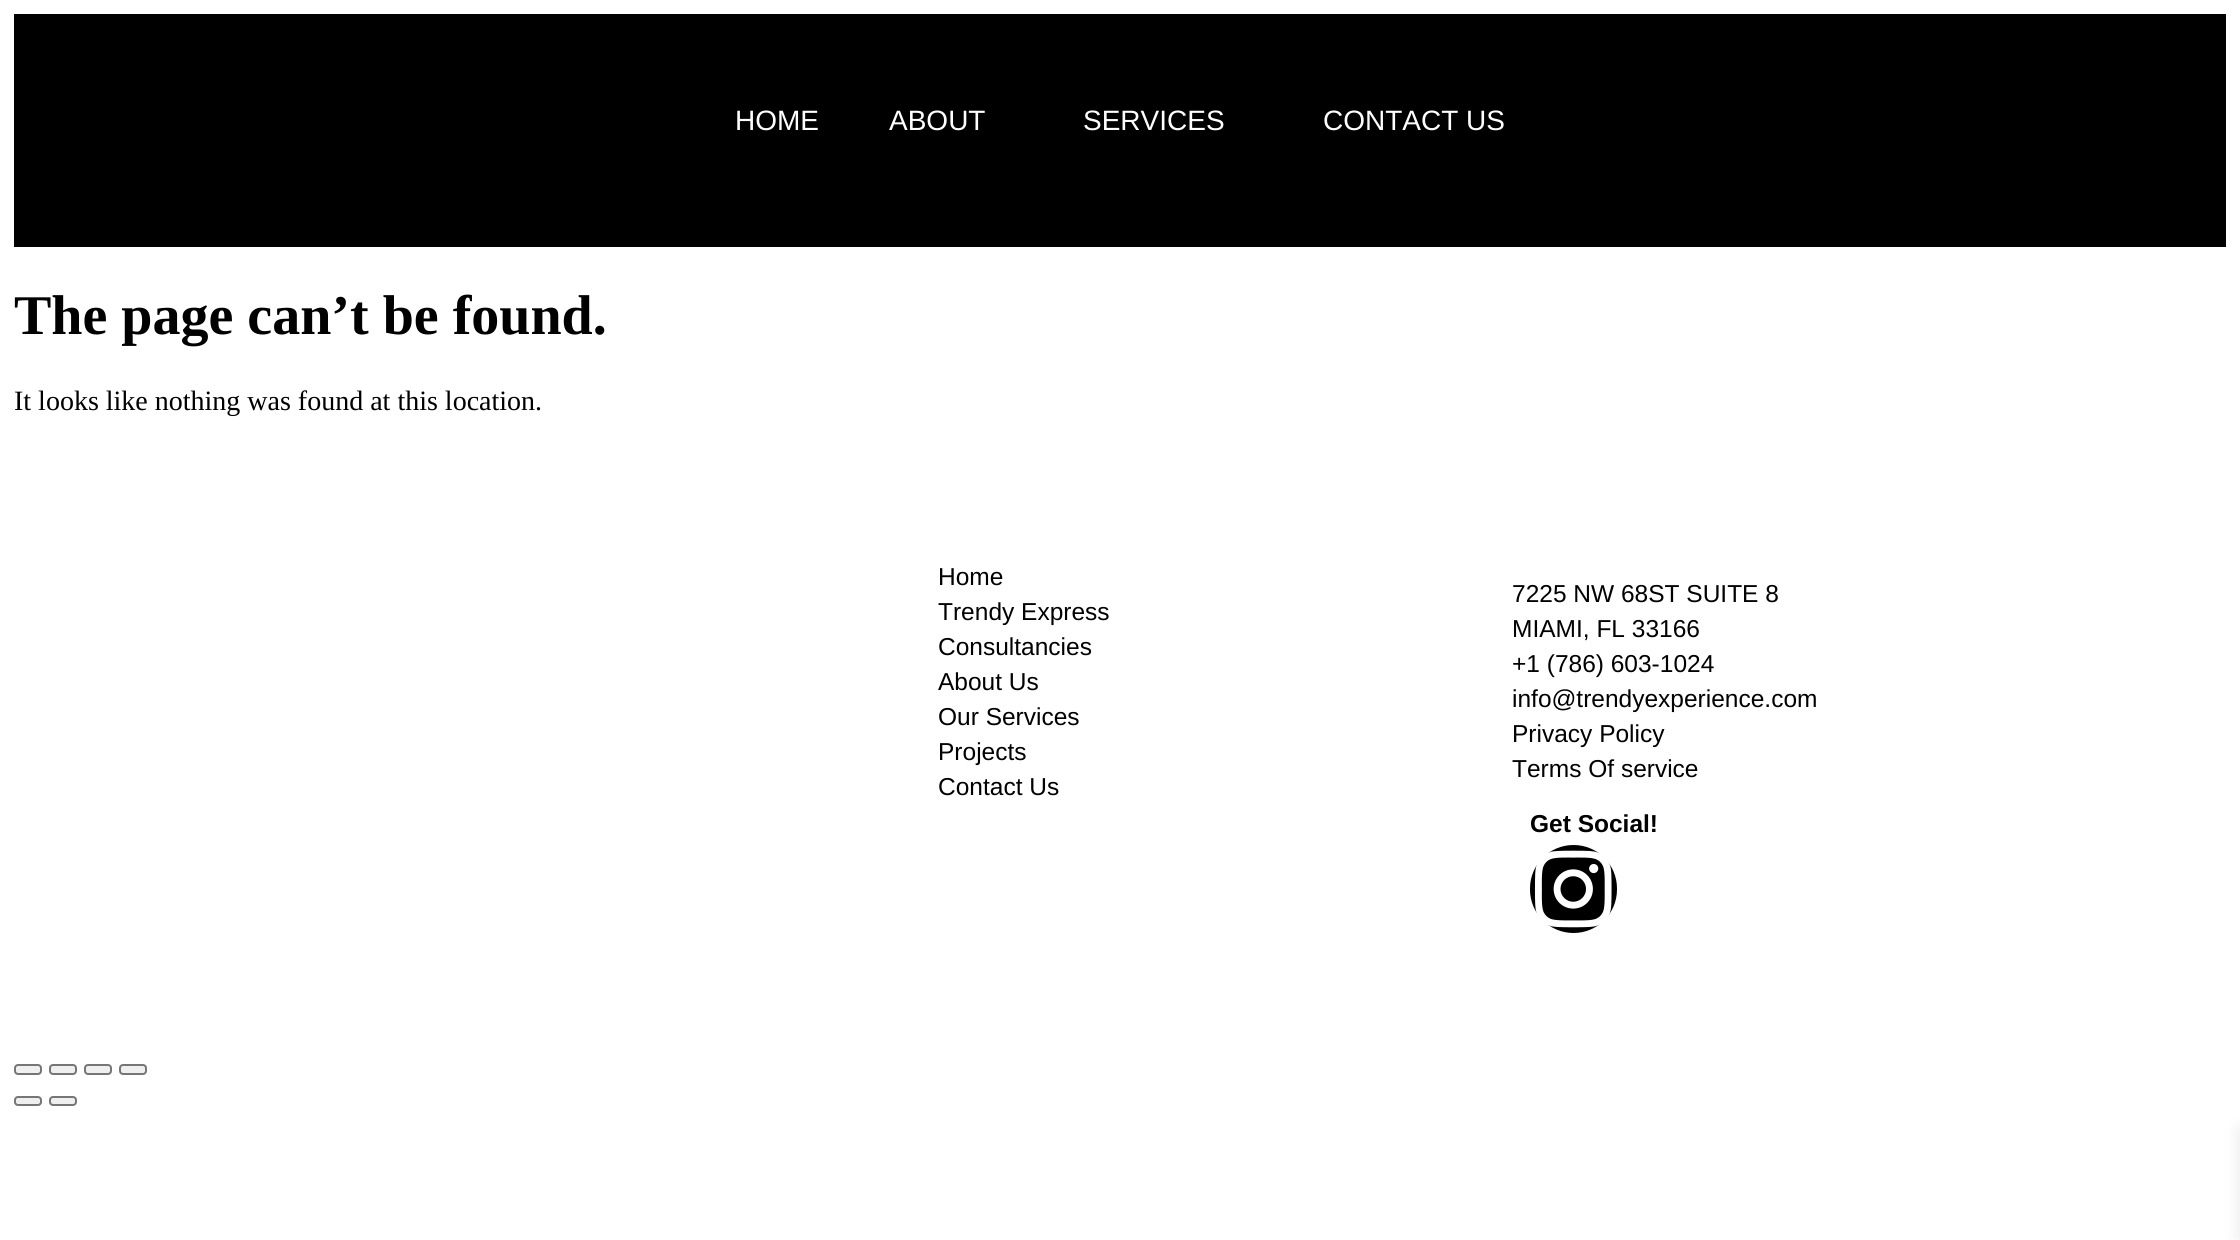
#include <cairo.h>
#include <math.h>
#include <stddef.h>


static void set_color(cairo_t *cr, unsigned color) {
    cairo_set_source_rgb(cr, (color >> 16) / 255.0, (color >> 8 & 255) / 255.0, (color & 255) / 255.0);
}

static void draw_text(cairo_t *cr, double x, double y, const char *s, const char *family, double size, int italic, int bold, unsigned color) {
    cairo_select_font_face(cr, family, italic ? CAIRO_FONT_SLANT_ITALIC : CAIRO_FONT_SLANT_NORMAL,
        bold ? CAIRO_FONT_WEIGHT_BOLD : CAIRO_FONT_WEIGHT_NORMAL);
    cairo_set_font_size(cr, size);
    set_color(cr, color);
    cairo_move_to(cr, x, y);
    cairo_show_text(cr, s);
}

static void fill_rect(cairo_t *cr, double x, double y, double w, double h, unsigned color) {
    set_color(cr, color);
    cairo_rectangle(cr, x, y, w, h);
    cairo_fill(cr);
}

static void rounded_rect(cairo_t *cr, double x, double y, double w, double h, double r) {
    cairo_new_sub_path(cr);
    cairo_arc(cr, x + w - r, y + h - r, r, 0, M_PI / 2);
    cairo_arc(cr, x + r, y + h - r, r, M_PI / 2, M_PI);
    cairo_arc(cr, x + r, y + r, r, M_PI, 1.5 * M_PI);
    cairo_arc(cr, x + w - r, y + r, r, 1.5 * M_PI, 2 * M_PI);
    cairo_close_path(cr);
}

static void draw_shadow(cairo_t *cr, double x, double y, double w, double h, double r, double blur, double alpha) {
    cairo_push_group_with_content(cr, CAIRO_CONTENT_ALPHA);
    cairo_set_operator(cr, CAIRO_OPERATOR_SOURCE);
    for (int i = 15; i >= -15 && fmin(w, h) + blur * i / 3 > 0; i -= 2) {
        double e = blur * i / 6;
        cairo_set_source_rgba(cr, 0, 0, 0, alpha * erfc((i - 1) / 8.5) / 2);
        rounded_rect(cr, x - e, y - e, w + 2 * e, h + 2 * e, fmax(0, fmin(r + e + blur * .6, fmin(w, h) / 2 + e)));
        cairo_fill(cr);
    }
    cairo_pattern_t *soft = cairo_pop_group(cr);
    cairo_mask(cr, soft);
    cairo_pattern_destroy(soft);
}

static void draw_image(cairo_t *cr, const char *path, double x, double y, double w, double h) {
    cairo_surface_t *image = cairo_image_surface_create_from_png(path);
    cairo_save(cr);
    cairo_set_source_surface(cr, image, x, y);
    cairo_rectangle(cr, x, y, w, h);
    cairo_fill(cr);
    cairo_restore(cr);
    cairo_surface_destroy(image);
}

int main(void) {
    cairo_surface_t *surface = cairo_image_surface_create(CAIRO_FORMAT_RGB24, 2240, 1240);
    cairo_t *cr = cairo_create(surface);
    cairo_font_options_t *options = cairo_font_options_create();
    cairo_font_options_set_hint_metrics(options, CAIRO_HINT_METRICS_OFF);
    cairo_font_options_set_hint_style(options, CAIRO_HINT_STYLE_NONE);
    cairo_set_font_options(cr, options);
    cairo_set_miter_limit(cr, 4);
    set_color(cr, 0xFFFFFF);
    cairo_paint(cr);
    fill_rect(cr, 14, 14, 2212, 233, 0x000000);
    draw_text(cr, 735, 130, "HOME", "Liberation Sans", 28, 0, 0, 0xFFFFFF);
    draw_text(cr, 889, 130, "ABOUT", "Liberation Sans", 28, 0, 0, 0xFFFFFF);
    draw_text(cr, 1083, 130, "SERVICES", "Liberation Sans", 28, 0, 0, 0xFFFFFF);
    draw_text(cr, 1323, 130, "CONTACT US", "Liberation Sans", 28, 0, 0, 0xFFFFFF);
    draw_text(cr, 14, 334, "The page can’t be found.", "Liberation Serif", 56, 0, 1, 0x000000);
    draw_text(cr, 14, 410, "It looks like nothing was found at this location.", "Liberation Serif", 28, 0, 0, 0x000000);
    draw_text(cr, 938, 585, "Home", "Liberation Sans", 24.5, 0, 0, 0x000000);
    draw_text(cr, 938, 620, "Trendy Express", "Liberation Sans", 24.5, 0, 0, 0x000000);
    draw_text(cr, 938, 655, "Consultancies", "Liberation Sans", 24.5, 0, 0, 0x000000);
    draw_text(cr, 938, 690, "About Us", "Liberation Sans", 24.5, 0, 0, 0x000000);
    draw_text(cr, 938, 725, "Our Services", "Liberation Sans", 24.5, 0, 0, 0x000000);
    draw_text(cr, 938, 760, "Projects", "Liberation Sans", 24.5, 0, 0, 0x000000);
    draw_text(cr, 938, 795, "Contact Us", "Liberation Sans", 24.5, 0, 0, 0x000000);
    draw_text(cr, 1512, 602, "7225 NW 68ST SUITE 8", "Liberation Sans", 24.5, 0, 0, 0x000000);
    draw_text(cr, 1512, 637, "MIAMI, FL 33166", "Liberation Sans", 24.5, 0, 0, 0x000000);
    draw_text(cr, 1512, 672, "+1 (786) 603-1024", "Liberation Sans", 24.5, 0, 0, 0x000000);
    draw_text(cr, 1512, 707, "info@trendyexperience.com", "Liberation Sans", 24.5, 0, 0, 0x000000);
    draw_text(cr, 1512, 742, "Privacy Policy", "Liberation Sans", 24.5, 0, 0, 0x000000);
    draw_text(cr, 1512, 777, "Terms Of service", "Liberation Sans", 24.5, 0, 0, 0x000000);
    draw_text(cr, 1530, 832, "Get Social!", "Liberation Sans", 24.5, 0, 1, 0x000000);
    rounded_rect(cr, 1530, 845, 87, 88, 43.5);
    cairo_fill(cr);
    draw_image(cr, "assets/img1.png", 1534, 850, 78, 78);
    set_color(cr, 0xEFEFEF);
    rounded_rect(cr, 15, 1065, 26, 9, 3);
    cairo_fill_preserve(cr);
    set_color(cr, 0x767676);
    cairo_stroke(cr);
    set_color(cr, 0xEFEFEF);
    rounded_rect(cr, 50, 1065, 26, 9, 3);
    cairo_fill_preserve(cr);
    set_color(cr, 0x767676);
    cairo_stroke(cr);
    set_color(cr, 0xEFEFEF);
    rounded_rect(cr, 85, 1065, 26, 9, 3);
    cairo_fill_preserve(cr);
    set_color(cr, 0x767676);
    cairo_stroke(cr);
    set_color(cr, 0xEFEFEF);
    rounded_rect(cr, 120, 1065, 26, 9, 3);
    cairo_fill_preserve(cr);
    set_color(cr, 0x767676);
    cairo_stroke(cr);
    set_color(cr, 0xEFEFEF);
    rounded_rect(cr, 15, 1097, 26, 8, 3);
    cairo_fill_preserve(cr);
    set_color(cr, 0x767676);
    cairo_stroke(cr);
    set_color(cr, 0xEFEFEF);
    rounded_rect(cr, 50, 1097, 26, 8, 3);
    cairo_fill_preserve(cr);
    set_color(cr, 0x767676);
    cairo_stroke(cr);
    set_color(cr, 0x000000);
    draw_shadow(cr, 2240, 1131, 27, 108, 0, 9, 0.1);
    cairo_surface_write_to_png(surface, "output.png");
    cairo_font_options_destroy(options);
    cairo_destroy(cr);
    cairo_surface_destroy(surface);
    return 0;
}
